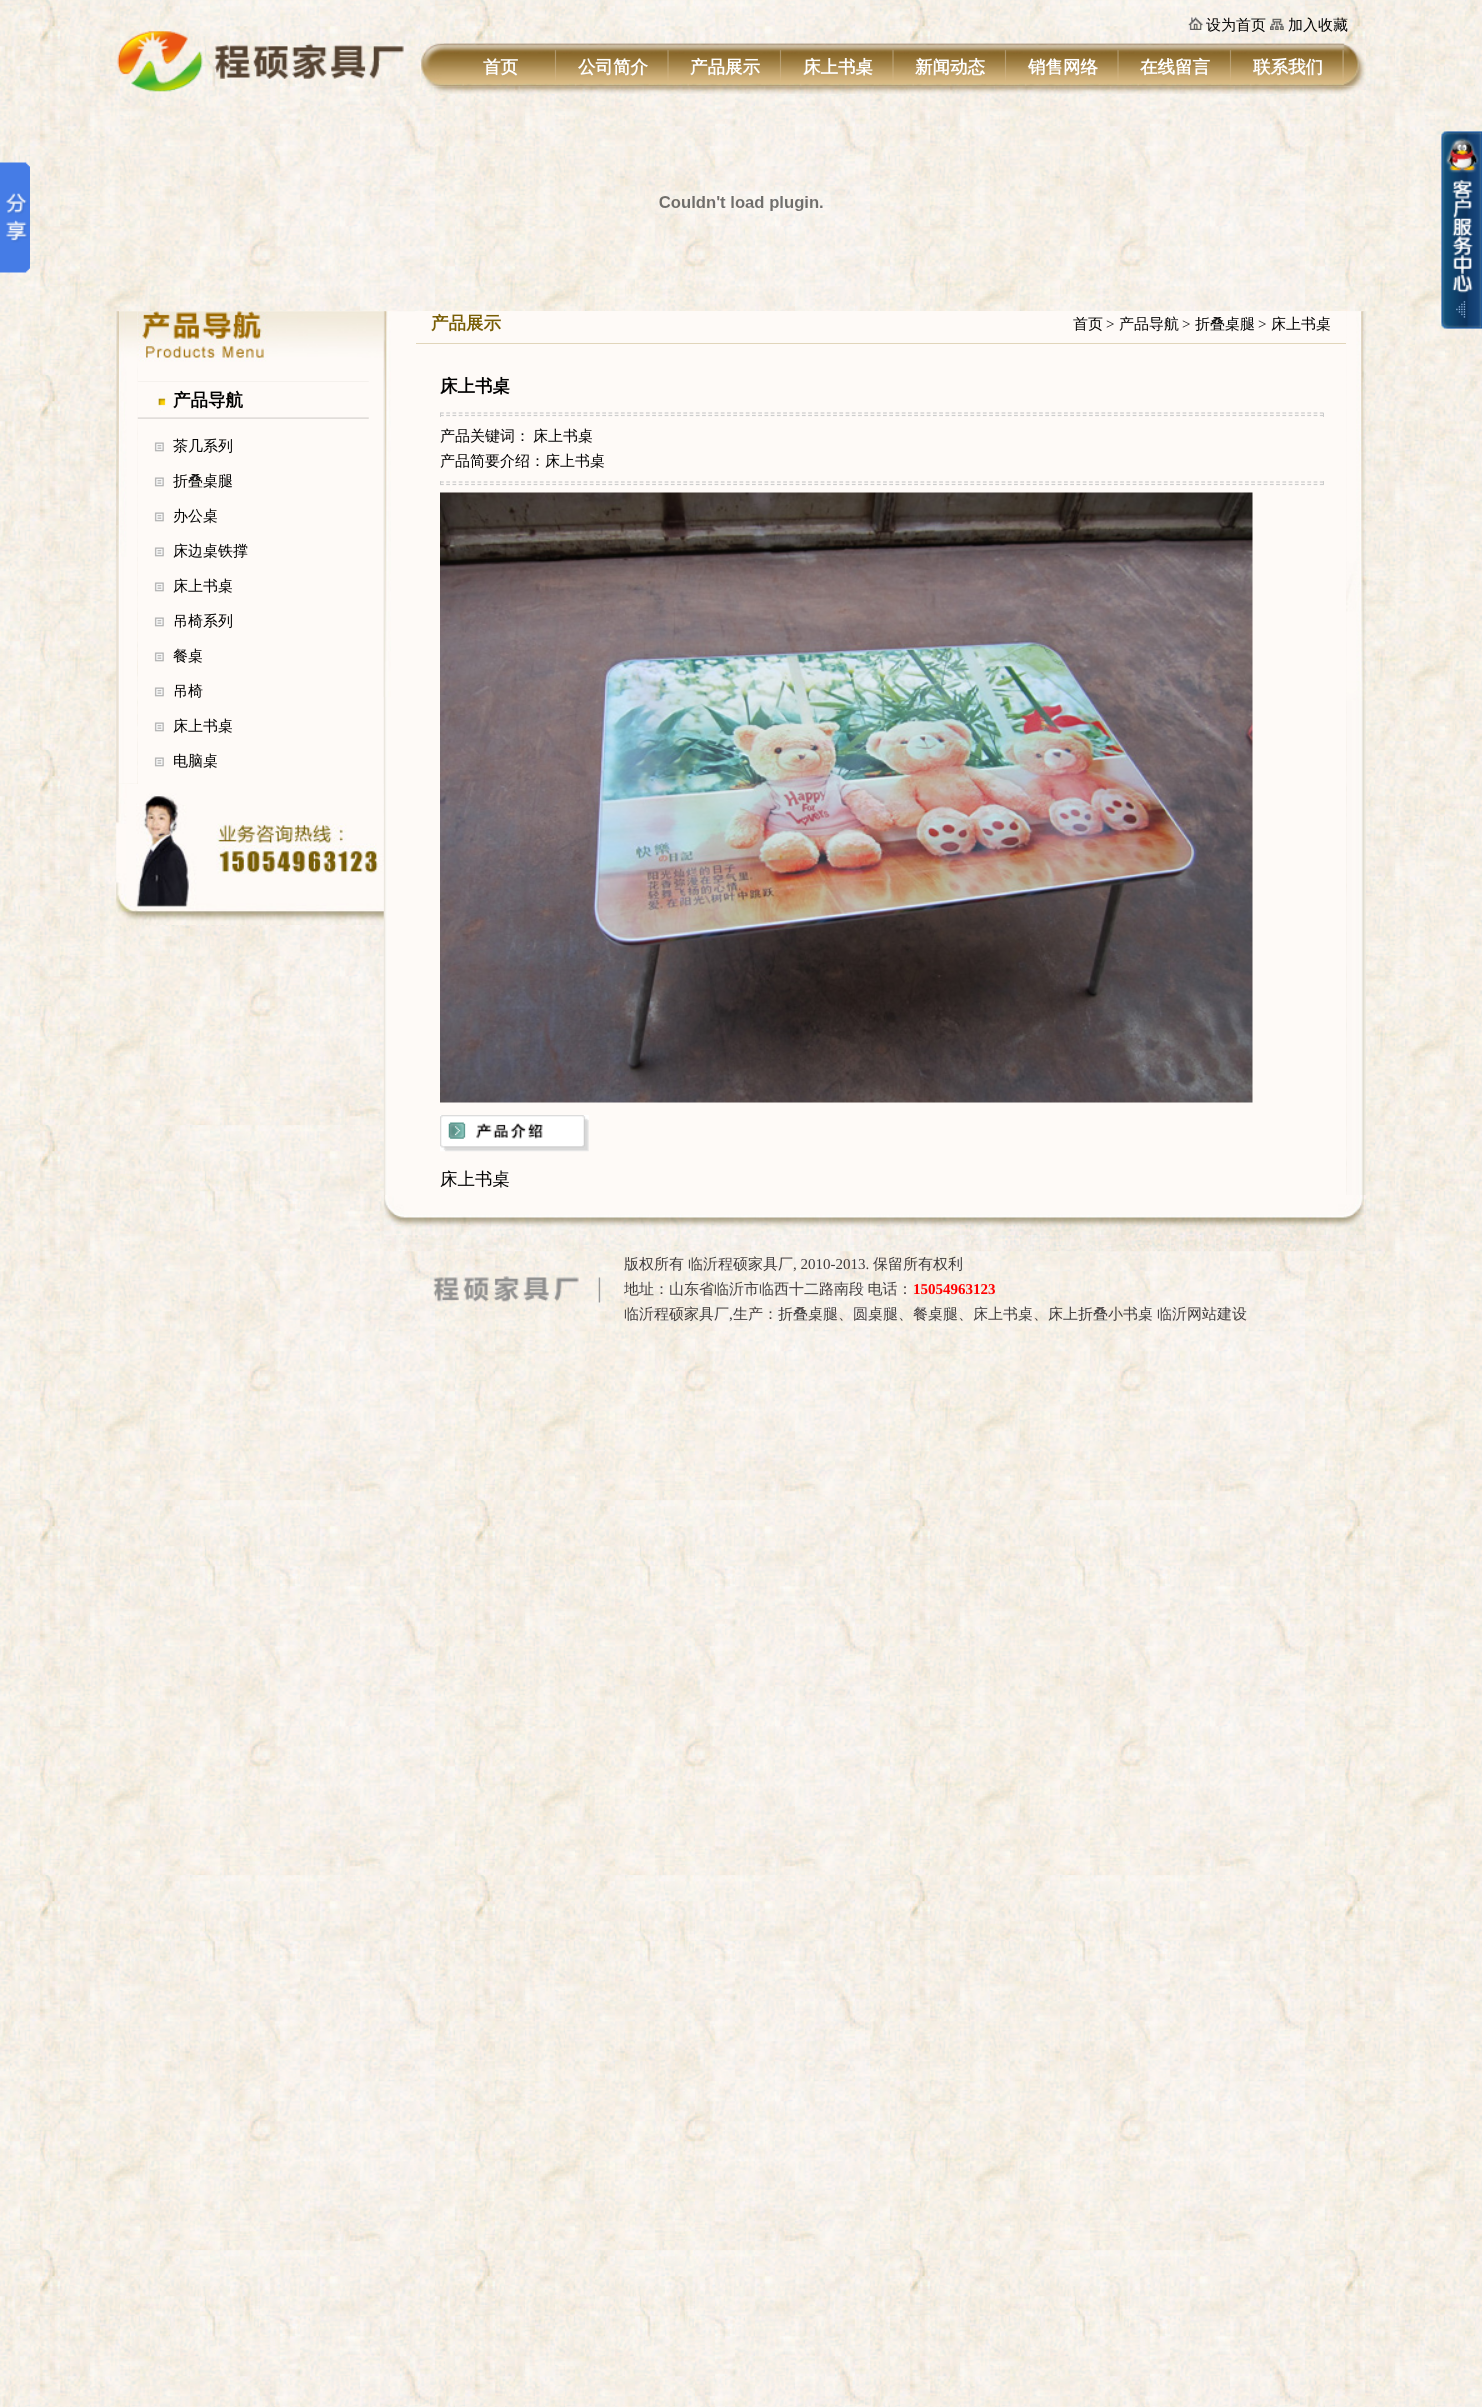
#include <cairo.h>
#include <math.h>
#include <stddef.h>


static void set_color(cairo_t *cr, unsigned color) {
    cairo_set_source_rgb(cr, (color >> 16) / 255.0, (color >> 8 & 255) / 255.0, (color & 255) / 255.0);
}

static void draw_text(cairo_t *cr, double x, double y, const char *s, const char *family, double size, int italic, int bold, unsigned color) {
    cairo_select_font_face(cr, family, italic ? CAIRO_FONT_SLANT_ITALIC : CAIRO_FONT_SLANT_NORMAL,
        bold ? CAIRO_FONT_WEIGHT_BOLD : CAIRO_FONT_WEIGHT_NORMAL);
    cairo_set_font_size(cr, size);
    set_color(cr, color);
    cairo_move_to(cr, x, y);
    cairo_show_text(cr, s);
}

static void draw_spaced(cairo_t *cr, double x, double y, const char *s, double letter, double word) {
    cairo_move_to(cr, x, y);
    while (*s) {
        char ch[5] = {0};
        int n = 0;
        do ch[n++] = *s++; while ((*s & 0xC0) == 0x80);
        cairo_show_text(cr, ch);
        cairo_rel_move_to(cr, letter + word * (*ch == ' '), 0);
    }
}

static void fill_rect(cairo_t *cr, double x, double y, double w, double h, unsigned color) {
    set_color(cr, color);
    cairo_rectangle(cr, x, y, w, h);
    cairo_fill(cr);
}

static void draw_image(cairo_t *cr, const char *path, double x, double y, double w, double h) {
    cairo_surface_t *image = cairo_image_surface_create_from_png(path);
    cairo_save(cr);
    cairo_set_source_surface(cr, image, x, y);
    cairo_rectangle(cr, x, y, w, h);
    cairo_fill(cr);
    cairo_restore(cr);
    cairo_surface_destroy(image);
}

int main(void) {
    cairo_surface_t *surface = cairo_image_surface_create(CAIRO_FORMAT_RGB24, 1482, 2407);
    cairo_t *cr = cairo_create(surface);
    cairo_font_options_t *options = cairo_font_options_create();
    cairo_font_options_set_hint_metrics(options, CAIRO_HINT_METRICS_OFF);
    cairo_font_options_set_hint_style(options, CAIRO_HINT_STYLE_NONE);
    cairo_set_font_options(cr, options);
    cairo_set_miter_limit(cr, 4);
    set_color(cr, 0xFFFFFF);
    cairo_paint(cr);
    draw_image(cr, "assets/img1.png", 0, 0, 1482, 2407);
    draw_image(cr, "assets/img2.png", 117, 31, 287, 61);
    draw_image(cr, "assets/img3.png", 1188, 17, 15, 13);
    draw_text(cr, 1206, 30, "设为首页", "WenQuanYi Zen Hei Medium", 15, 0, 0, 0x000000);
    draw_image(cr, "assets/img4.png", 1270, 18, 14, 12);
    draw_text(cr, 1288, 30, "加入收藏", "WenQuanYi Zen Hei Medium", 15, 0, 0, 0x000000);
    draw_image(cr, "assets/img5.png", 421, 43, 945, 44);
    draw_image(cr, "assets/img6.png", 443, 43, 114, 44);
    draw_text(cr, 483, 73, "首页", "WenQuanYi Zen Hei", 17.5, 0, 1, 0xFFFFFF);
    draw_image(cr, "assets/img7.png", 556, 43, 113, 44);
    draw_text(cr, 578, 73, "公司简介", "WenQuanYi Zen Hei", 17.5, 0, 1, 0xFFFFFF);
    draw_image(cr, "assets/img8.png", 668, 43, 114, 44);
    draw_text(cr, 690, 73, "产品展示", "WenQuanYi Zen Hei", 17.5, 0, 1, 0xFFFFFF);
    draw_image(cr, "assets/img9.png", 781, 43, 113, 44);
    draw_text(cr, 803, 73, "床上书桌", "WenQuanYi Zen Hei", 17.5, 0, 1, 0xFFFFFF);
    draw_image(cr, "assets/img10.png", 893, 43, 114, 44);
    draw_text(cr, 915, 73, "新闻动态", "WenQuanYi Zen Hei", 17.5, 0, 1, 0xFFFFFF);
    draw_image(cr, "assets/img11.png", 1006, 43, 113, 44);
    draw_text(cr, 1028, 73, "销售网络", "WenQuanYi Zen Hei", 17.5, 0, 1, 0xFFFFFF);
    draw_image(cr, "assets/img12.png", 1118, 43, 114, 44);
    draw_text(cr, 1140, 73, "在线留言", "WenQuanYi Zen Hei", 17.5, 0, 1, 0xFFFFFF);
    draw_image(cr, "assets/img13.png", 1231, 43, 113, 44);
    draw_text(cr, 1253, 73, "联系我们", "WenQuanYi Zen Hei", 17.5, 0, 1, 0xFFFFFF);
    draw_image(cr, "assets/img14.png", 422, 86, 944, 8);
    draw_image(cr, "assets/img15.png", 0, 162, 30, 111);
    draw_image(cr, "assets/img16.png", 651, 191, 180, 23);
    draw_image(cr, "assets/img17.png", 1441, 131, 41, 198);
    draw_image(cr, "assets/img18.png", 116, 311, 22, 473);
    fill_rect(cr, 138, 311, 246, 473, 0xFEFAF7);
    draw_image(cr, "assets/img21.png", 137, 381, 232, 38);
    draw_image(cr, "assets/img19.png", 116, 311, 22, 246);
    draw_image(cr, "assets/img24.png", 383, 311, 32, 884);
    draw_image(cr, "assets/img20.png", 137, 311, 247, 57);
    draw_text(cr, 173, 406, "产品导航", "WenQuanYi Zen Hei", 17.5, 0, 1, 0x000000);
    draw_image(cr, "assets/img22.png", 154, 442, 10, 10);
    draw_text(cr, 173, 451, "茶几系列", "WenQuanYi Zen Hei Medium", 15, 0, 0, 0x000000);
    draw_image(cr, "assets/img22.png", 154, 477, 10, 10);
    draw_text(cr, 173, 486, "折叠桌腿", "WenQuanYi Zen Hei Medium", 15, 0, 0, 0x000000);
    draw_image(cr, "assets/img22.png", 154, 512, 10, 10);
    draw_text(cr, 173, 521, "办公桌", "WenQuanYi Zen Hei Medium", 15, 0, 0, 0x000000);
    draw_image(cr, "assets/img22.png", 154, 547, 10, 10);
    draw_text(cr, 173, 556, "床边桌铁撑", "WenQuanYi Zen Hei Medium", 15, 0, 0, 0x000000);
    draw_image(cr, "assets/img22.png", 154, 582, 10, 10);
    draw_text(cr, 173, 591, "床上书桌", "WenQuanYi Zen Hei Medium", 15, 0, 0, 0x000000);
    draw_image(cr, "assets/img22.png", 154, 617, 10, 10);
    draw_text(cr, 173, 626, "吊椅系列", "WenQuanYi Zen Hei Medium", 15, 0, 0, 0x000000);
    draw_image(cr, "assets/img22.png", 154, 652, 10, 10);
    draw_text(cr, 173, 661, "餐桌", "WenQuanYi Zen Hei Medium", 15, 0, 0, 0x000000);
    draw_image(cr, "assets/img22.png", 154, 687, 10, 10);
    draw_text(cr, 173, 696, "吊椅", "WenQuanYi Zen Hei Medium", 15, 0, 0, 0x000000);
    draw_image(cr, "assets/img22.png", 154, 722, 10, 10);
    draw_text(cr, 173, 731, "床上书桌", "WenQuanYi Zen Hei Medium", 15, 0, 0, 0x000000);
    draw_image(cr, "assets/img22.png", 154, 757, 10, 10);
    draw_text(cr, 173, 766, "电脑桌", "WenQuanYi Zen Hei Medium", 15, 0, 0, 0x000000);
    draw_image(cr, "assets/img23.png", 116, 784, 268, 141);
    draw_image(cr, "assets/img25.png", 383, 311, 8, 386);
    fill_rect(cr, 415, 311, 931, 884, 0xFEFAF7);
    draw_text(cr, 431, 329, "产品展示", "WenQuanYi Zen Hei", 17.5, 0, 1, 0x785D04);
    draw_text(cr, 1073, 329, "首页", "WenQuanYi Zen Hei Medium", 15, 0, 0, 0x000000);
    draw_text(cr, 1106, 329, ">", "Liberation Serif", 15, 0, 0, 0x000000);
    draw_text(cr, 1119, 329, "产品导航", "WenQuanYi Zen Hei Medium", 15, 0, 0, 0x000000);
    draw_text(cr, 1182, 329, ">", "Liberation Serif", 15, 0, 0, 0x000000);
    draw_text(cr, 1195, 329, "折叠桌腿", "WenQuanYi Zen Hei Medium", 15, 0, 0, 0x000000);
    draw_text(cr, 1258, 329, ">", "Liberation Serif", 15, 0, 0, 0x000000);
    draw_text(cr, 1271, 329, "床上书桌", "WenQuanYi Zen Hei Medium", 15, 0, 0, 0x000000);
    fill_rect(cr, 416, 343, 930, 1, 0xE1D5BA);
    draw_text(cr, 440, 392, "床上书桌", "WenQuanYi Zen Hei", 17.5, 0, 1, 0x000000);
    cairo_new_path(cr);
    cairo_move_to(cr, 440, 413);
    cairo_line_to(cr, 1324, 413);
    set_color(cr, 0xCCCCCC);
    cairo_set_line_width(cr, 1.2);
    cairo_set_dash(cr, (double[]){3.75, 2.49}, 2, 0);
    cairo_stroke(cr);
    fill_rect(cr, 1323, 413, 1, 4, 0xCCCCCC);
    cairo_new_path(cr);
    cairo_move_to(cr, 440, 415.5);
    cairo_line_to(cr, 1324, 415.5);
    cairo_stroke(cr);
    fill_rect(cr, 440, 413, 1, 4, 0xCCCCCC);
    draw_text(cr, 440, 441, "产品关键词：", "WenQuanYi Zen Hei Medium", 15, 0, 0, 0x000000);
    draw_text(cr, 533, 441, "床上书桌", "WenQuanYi Zen Hei Medium", 15, 0, 0, 0x000000);
    draw_text(cr, 440, 466, "产品简要介绍：床上书桌", "WenQuanYi Zen Hei Medium", 15, 0, 0, 0x000000);
    cairo_new_path(cr);
    cairo_move_to(cr, 440, 482);
    cairo_line_to(cr, 1324, 482);
    set_color(cr, 0xCCCCCC);
    cairo_stroke(cr);
    fill_rect(cr, 1323, 481, 1, 4, 0xCCCCCC);
    cairo_new_path(cr);
    cairo_move_to(cr, 440, 484.5);
    cairo_line_to(cr, 1324, 484.5);
    cairo_stroke(cr);
    fill_rect(cr, 440, 481, 1, 4, 0xCCCCCC);
    draw_image(cr, "assets/img26.png", 440, 492, 813, 611);
    draw_image(cr, "assets/img27.png", 440, 1115, 149, 37);
    draw_text(cr, 440, 1185, "床上书桌", "WenQuanYi Zen Hei Medium", 17.5, 0, 0, 0x000000);
    draw_image(cr, "assets/img28.png", 1346, 311, 20, 884);
    draw_image(cr, "assets/img29.png", 1346, 311, 21, 390);
    draw_image(cr, "assets/img30.png", 383, 1195, 984, 57);
    draw_image(cr, "assets/img31.png", 433, 1276, 168, 27);
    draw_text(cr, 624, 1269, "版权所有", "WenQuanYi Zen Hei Medium", 15, 0, 0, 0x3F3B3C);
    draw_text(cr, 688, 1269, "临沂程硕家具厂", "WenQuanYi Zen Hei Medium", 15, 0, 0, 0x3F3B3C);
    draw_text(cr, 793, 1269, ", 2010-2013.", "Liberation Serif", 15, 0, 0, 0x3F3B3C);
    draw_text(cr, 873, 1269, "保留所有权利", "WenQuanYi Zen Hei Medium", 15, 0, 0, 0x3F3B3C);
    draw_spaced(cr, 624, 1294, "地址：山东省临沂市临西十二路南段 电话：", 0, -1);
    draw_text(cr, 913, 1294, "15054963123", "Liberation Serif", 15, 0, 1, 0xFF0000);
    draw_text(cr, 624, 1319, "临沂程硕家具厂", "WenQuanYi Zen Hei Medium", 15, 0, 0, 0x3F3B3C);
    draw_text(cr, 729, 1319, ",", "Liberation Serif", 15, 0, 0, 0x3F3B3C);
    draw_text(cr, 733, 1319, "生产：折叠桌腿、圆桌腿、餐桌腿、床上书桌、床上折叠小书桌", "WenQuanYi Zen Hei Medium", 15, 0, 0, 0x3F3B3C);
    draw_text(cr, 1157, 1319, "临沂网站建设", "WenQuanYi Zen Hei Medium", 15, 0, 0, 0x3F3B3C);
    cairo_surface_write_to_png(surface, "output.png");
    cairo_font_options_destroy(options);
    cairo_destroy(cr);
    cairo_surface_destroy(surface);
    return 0;
}
